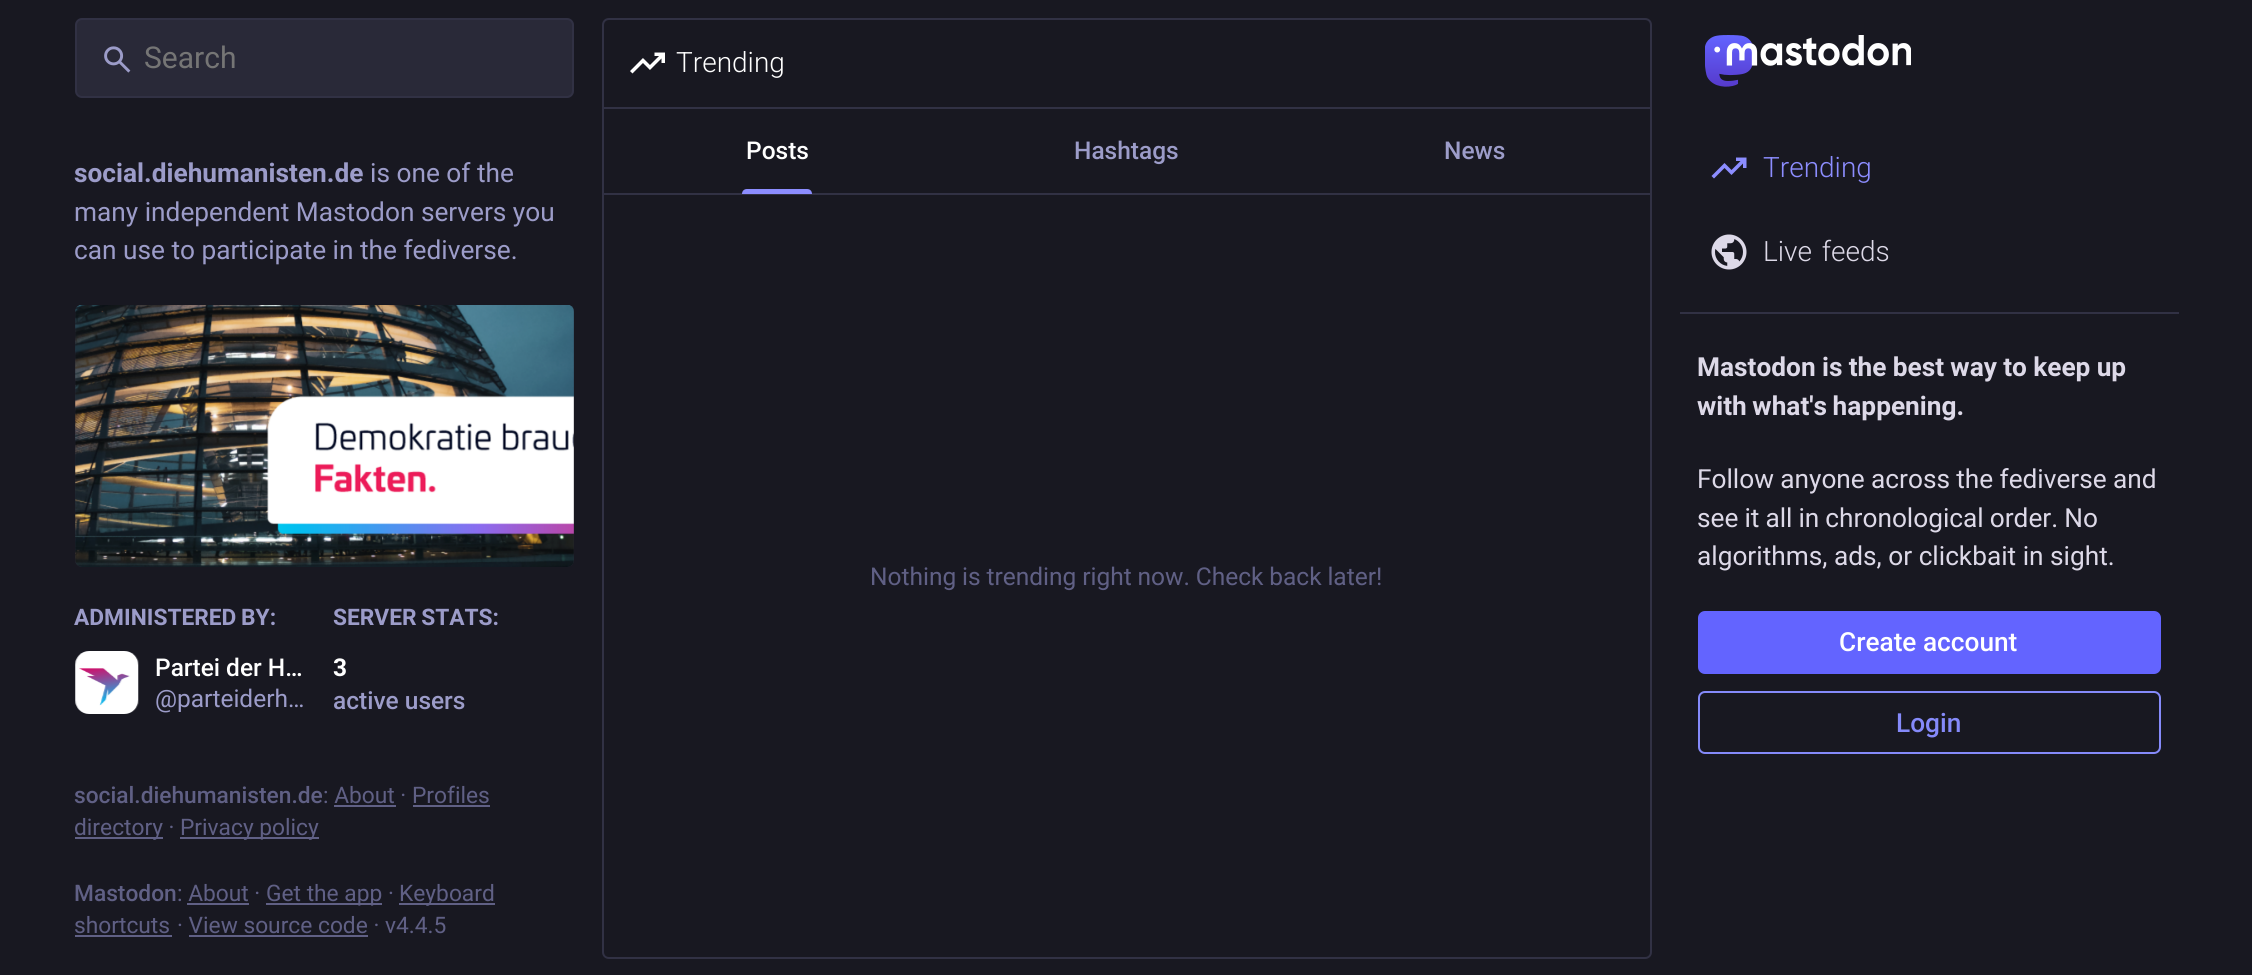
#include <cairo.h>
#include <math.h>
#include <stddef.h>


static void set_color(cairo_t *cr, unsigned color) {
    cairo_set_source_rgb(cr, (color >> 16) / 255.0, (color >> 8 & 255) / 255.0, (color & 255) / 255.0);
}

static void draw_text(cairo_t *cr, double x, double y, const char *s, const char *family, double size, int italic, int bold, unsigned color) {
    cairo_select_font_face(cr, family, italic ? CAIRO_FONT_SLANT_ITALIC : CAIRO_FONT_SLANT_NORMAL,
        bold ? CAIRO_FONT_WEIGHT_BOLD : CAIRO_FONT_WEIGHT_NORMAL);
    cairo_set_font_size(cr, size);
    set_color(cr, color);
    cairo_move_to(cr, x, y);
    cairo_show_text(cr, s);
}

static void draw_spaced(cairo_t *cr, double x, double y, const char *s, double letter, double word) {
    cairo_move_to(cr, x, y);
    while (*s) {
        char ch[5] = {0};
        int n = 0;
        do ch[n++] = *s++; while ((*s & 0xC0) == 0x80);
        cairo_show_text(cr, ch);
        cairo_rel_move_to(cr, letter + word * (*ch == ' '), 0);
    }
}

static void fill_rect(cairo_t *cr, double x, double y, double w, double h, unsigned color) {
    set_color(cr, color);
    cairo_rectangle(cr, x, y, w, h);
    cairo_fill(cr);
}

static void rounded_rect(cairo_t *cr, double x, double y, double w, double h, double r) {
    cairo_new_sub_path(cr);
    cairo_arc(cr, x + w - r, y + h - r, r, 0, M_PI / 2);
    cairo_arc(cr, x + r, y + h - r, r, M_PI / 2, M_PI);
    cairo_arc(cr, x + r, y + r, r, M_PI, 1.5 * M_PI);
    cairo_arc(cr, x + w - r, y + r, r, 1.5 * M_PI, 2 * M_PI);
    cairo_close_path(cr);
}

static void draw_image(cairo_t *cr, const char *path, double x, double y, double w, double h) {
    cairo_surface_t *image = cairo_image_surface_create_from_png(path);
    cairo_save(cr);
    cairo_set_source_surface(cr, image, x, y);
    cairo_rectangle(cr, x, y, w, h);
    cairo_fill(cr);
    cairo_restore(cr);
    cairo_surface_destroy(image);
}

int main(void) {
    cairo_surface_t *surface = cairo_image_surface_create(CAIRO_FORMAT_RGB24, 2252, 975);
    cairo_t *cr = cairo_create(surface);
    cairo_font_options_t *options = cairo_font_options_create();
    cairo_font_options_set_hint_metrics(options, CAIRO_HINT_METRICS_OFF);
    cairo_font_options_set_hint_style(options, CAIRO_HINT_STYLE_NONE);
    cairo_set_font_options(cr, options);
    cairo_set_miter_limit(cr, 4);
    set_color(cr, 0x181821);
    cairo_paint(cr);
    set_color(cr, 0x292938);
    rounded_rect(cr, 76, 19, 497, 78, 6);
    cairo_fill_preserve(cr);
    set_color(cr, 0x313144);
    cairo_stroke(cr);
    draw_image(cr, "assets/img1.png", 104, 46, 27, 27);
    draw_text(cr, 144, 68, "Search", "Roboto", 30, 0, 0, 0x757575);
    draw_text(cr, 74, 182, "social.diehumanisten.de", "Roboto", 26.25, 0, 1, 0x9C9CC9);
    draw_text(cr, 370, 182, "is one of the", "Roboto", 26.25, 0, 0, 0x9C9CC9);
    draw_text(cr, 74, 221, "many independent Mastodon servers you", "Roboto", 26.25, 0, 0, 0x9C9CC9);
    draw_text(cr, 74, 259, "can use to participate in the fediverse.", "Roboto", 26.25, 0, 0, 0x9C9CC9);
    set_color(cr, 0x292938);
    rounded_rect(cr, 75, 305, 499, 262, 7);
    cairo_fill(cr);
    draw_image(cr, "assets/img2.png", 75, 305, 499, 262);
    cairo_select_font_face(cr, "Roboto", CAIRO_FONT_SLANT_NORMAL, CAIRO_FONT_WEIGHT_BOLD);
    cairo_set_font_size(cr, 22.75);
    set_color(cr, 0x9C9CC9);
    draw_spaced(cr, 74, 625, "ADMINISTERED BY:", 0, -1);
    set_color(cr, 0x20202C);
    rounded_rect(cr, 75, 651, 63, 63, 14);
    cairo_fill(cr);
    draw_image(cr, "assets/img3.png", 75, 651, 64, 63);
    draw_text(cr, 155, 676, "Partei der H…", "Roboto Medium", 24.5, 0, 0, 0xFFFFFF);
    draw_text(cr, 155, 707, "@parteiderh…", "Roboto", 24.5, 0, 0, 0x9C9CC9);
    cairo_select_font_face(cr, "Roboto", CAIRO_FONT_SLANT_NORMAL, CAIRO_FONT_WEIGHT_BOLD);
    cairo_set_font_size(cr, 22.75);
    draw_spaced(cr, 333, 625, "SERVER STATS:", 0, -1);
    draw_text(cr, 333, 676, "3", "Roboto", 24.5, 0, 1, 0xFFFFFF);
    draw_text(cr, 333, 709, "active users", "Roboto Medium", 24.5, 0, 0, 0x9C9CC9);
    draw_text(cr, 74, 803, "social.diehumanisten.de", "Roboto Medium", 22.75, 0, 0, 0x606085);
    draw_text(cr, 323, 803, ": About · Profiles", "Roboto", 22.75, 0, 0, 0x606085);
    fill_rect(cr, 334, 805, 62, 2, 0x606085);
    fill_rect(cr, 75, 837, 88, 2, 0x606085);
    draw_text(cr, 74, 835, "directory ·", "Roboto", 22.75, 0, 0, 0x606085);
    fill_rect(cr, 413, 805, 77, 2, 0x606085);
    fill_rect(cr, 180, 837, 139, 2, 0x606085);
    draw_text(cr, 180, 835, "Privacy policy", "Roboto", 22.75, 0, 0, 0x606085);
    draw_text(cr, 74, 901, "Mastodon", "Roboto Medium", 22.75, 0, 0, 0x606085);
    draw_text(cr, 177, 901, ": About ·", "Roboto", 22.75, 0, 0, 0x606085);
    fill_rect(cr, 266, 903, 116, 2, 0x606085);
    draw_text(cr, 266, 901, "Get the app ·", "Roboto", 22.75, 0, 0, 0x606085);
    fill_rect(cr, 399, 903, 96, 2, 0x606085);
    draw_text(cr, 399, 901, "Keyboard", "Roboto", 22.75, 0, 0, 0x606085);
    fill_rect(cr, 187, 903, 62, 2, 0x606085);
    draw_text(cr, 74, 933, "shortcuts", "Roboto", 22.75, 0, 0, 0x606085);
    fill_rect(cr, 75, 935, 97, 2, 0x606085);
    draw_text(cr, 177, 933, "· View source code · v4.4.5", "Roboto", 22.75, 0, 0, 0x606085);
    fill_rect(cr, 189, 935, 179, 2, 0x606085);
    cairo_new_path(cr);
    cairo_move_to(cr, 609, 19);
    cairo_line_to(cr, 1645, 19);
    cairo_curve_to(cr, 1648.5, 19, 1651, 21.5, 1651, 25);
    cairo_line_to(cr, 1651, 108);
    cairo_line_to(cr, 603, 108);
    cairo_line_to(cr, 603, 25);
    cairo_curve_to(cr, 603, 21.5, 605.5, 19, 609, 19);
    cairo_close_path(cr);
    set_color(cr, 0x313144);
    cairo_stroke(cr);
    draw_image(cr, "assets/img4.png", 630, 52, 35, 22);
    draw_text(cr, 676, 72, "Trending", "Roboto Light", 28, 0, 0, 0xFFFFFF);
    fill_rect(cr, 1650, 109, 2, 85, 0x313144);
    fill_rect(cr, 602, 193, 1050, 2, 0x313144);
    fill_rect(cr, 602, 109, 2, 85, 0x313144);
    draw_text(cr, 746, 159, "Posts", "Roboto Medium", 24.5, 0, 0, 0xFFFFFF);
    set_color(cr, 0x8C8DFF);
    cairo_new_path(cr);
    cairo_move_to(cr, 747, 189);
    cairo_line_to(cr, 807, 189);
    cairo_curve_to(cr, 810, 189, 812, 191, 812, 194);
    cairo_line_to(cr, 742, 194);
    cairo_curve_to(cr, 742, 191, 744, 189, 747, 189);
    cairo_close_path(cr);
    cairo_fill(cr);
    draw_text(cr, 1074, 159, "Hashtags", "Roboto Medium", 24.5, 0, 0, 0x9C9CC9);
    draw_text(cr, 1444, 159, "News", "Roboto Medium", 24.5, 0, 0, 0x9C9CC9);
    set_color(cr, 0x313144);
    cairo_set_fill_rule(cr, CAIRO_FILL_RULE_EVEN_ODD);
    cairo_new_path(cr);
    cairo_move_to(cr, 602, 194);
    cairo_line_to(cr, 1652, 194);
    cairo_line_to(cr, 1652, 952);
    cairo_curve_to(cr, 1652, 956, 1649, 959, 1645, 959);
    cairo_line_to(cr, 609, 959);
    cairo_curve_to(cr, 605, 959, 602, 956, 602, 952);
    cairo_close_path(cr);
    cairo_move_to(cr, 604, 194);
    cairo_line_to(cr, 1650, 194);
    cairo_line_to(cr, 1650, 952);
    cairo_curve_to(cr, 1650, 955, 1648, 957, 1645, 957);
    cairo_line_to(cr, 609, 957);
    cairo_curve_to(cr, 606, 957, 604, 955, 604, 952);
    cairo_close_path(cr);
    cairo_fill(cr);
    cairo_select_font_face(cr, "Roboto", CAIRO_FONT_SLANT_NORMAL, CAIRO_FONT_WEIGHT_NORMAL);
    set_color(cr, 0x606085);
    draw_spaced(cr, 870, 585, "Nothing is trending right now. Check back later!", 0, -0.25);
    draw_image(cr, "assets/img5.png", 1705, 35, 206, 52);
    set_color(cr, 0x8C8DFF);
    cairo_set_fill_rule(cr, CAIRO_FILL_RULE_WINDING);
    cairo_new_path(cr);
    cairo_move_to(cr, 1714, 178.5);
    cairo_line_to(cr, 1711.5, 176);
    cairo_line_to(cr, 1724.5, 163);
    cairo_line_to(cr, 1731.5, 170);
    cairo_line_to(cr, 1740.5, 161);
    cairo_line_to(cr, 1736, 161);
    cairo_line_to(cr, 1736, 157.5);
    cairo_line_to(cr, 1746.5, 157.5);
    cairo_line_to(cr, 1746.5, 168);
    cairo_line_to(cr, 1743, 168);
    cairo_line_to(cr, 1743, 163.5);
    cairo_line_to(cr, 1731.5, 175);
    cairo_line_to(cr, 1724.5, 168);
    cairo_close_path(cr);
    cairo_fill(cr);
    draw_text(cr, 1763, 177, "Trending", "Roboto Light", 28, 0, 0, 0x8C8DFF);
    draw_image(cr, "assets/img6.png", 1711, 234, 36, 36);
    set_color(cr, 0xDDD9E8);
    draw_spaced(cr, 1763, 261, "Live feeds", 0, 3);
    fill_rect(cr, 1680, 312, 499, 2, 0x313144);
    cairo_select_font_face(cr, "Roboto", CAIRO_FONT_SLANT_NORMAL, CAIRO_FONT_WEIGHT_BOLD);
    cairo_set_font_size(cr, 26.25);
    set_color(cr, 0xDDD9E8);
    draw_spaced(cr, 1697, 376, "Mastodon is the best way to keep up", 0, -0.25);
    draw_spaced(cr, 1697, 415, "with what's happening.", 0, -1);
    cairo_select_font_face(cr, "Roboto", CAIRO_FONT_SLANT_NORMAL, CAIRO_FONT_WEIGHT_NORMAL);
    draw_spaced(cr, 1697, 488, "Follow anyone across the fediverse and", 0, -0.25);
    draw_spaced(cr, 1697, 527, "see it all in chronological order. No", 0, -0.5);
    draw_text(cr, 1697, 565, "algorithms, ads, or clickbait in sight.", "Roboto", 26.25, 0, 0, 0xDDD9E8);
    set_color(cr, 0x6364FF);
    rounded_rect(cr, 1698, 611, 463, 63, 7);
    cairo_fill(cr);
    draw_text(cr, 1839, 651, "Create account", "Roboto Medium", 26.25, 0, 0, 0xFFFFFF);
    rounded_rect(cr, 1699, 692, 461, 61, 6);
    set_color(cr, 0x858AFA);
    cairo_stroke(cr);
    draw_text(cr, 1896, 732, "Login", "Roboto Medium", 26.25, 0, 0, 0x858AFA);
    cairo_surface_write_to_png(surface, "output.png");
    cairo_font_options_destroy(options);
    cairo_destroy(cr);
    cairo_surface_destroy(surface);
    return 0;
}
